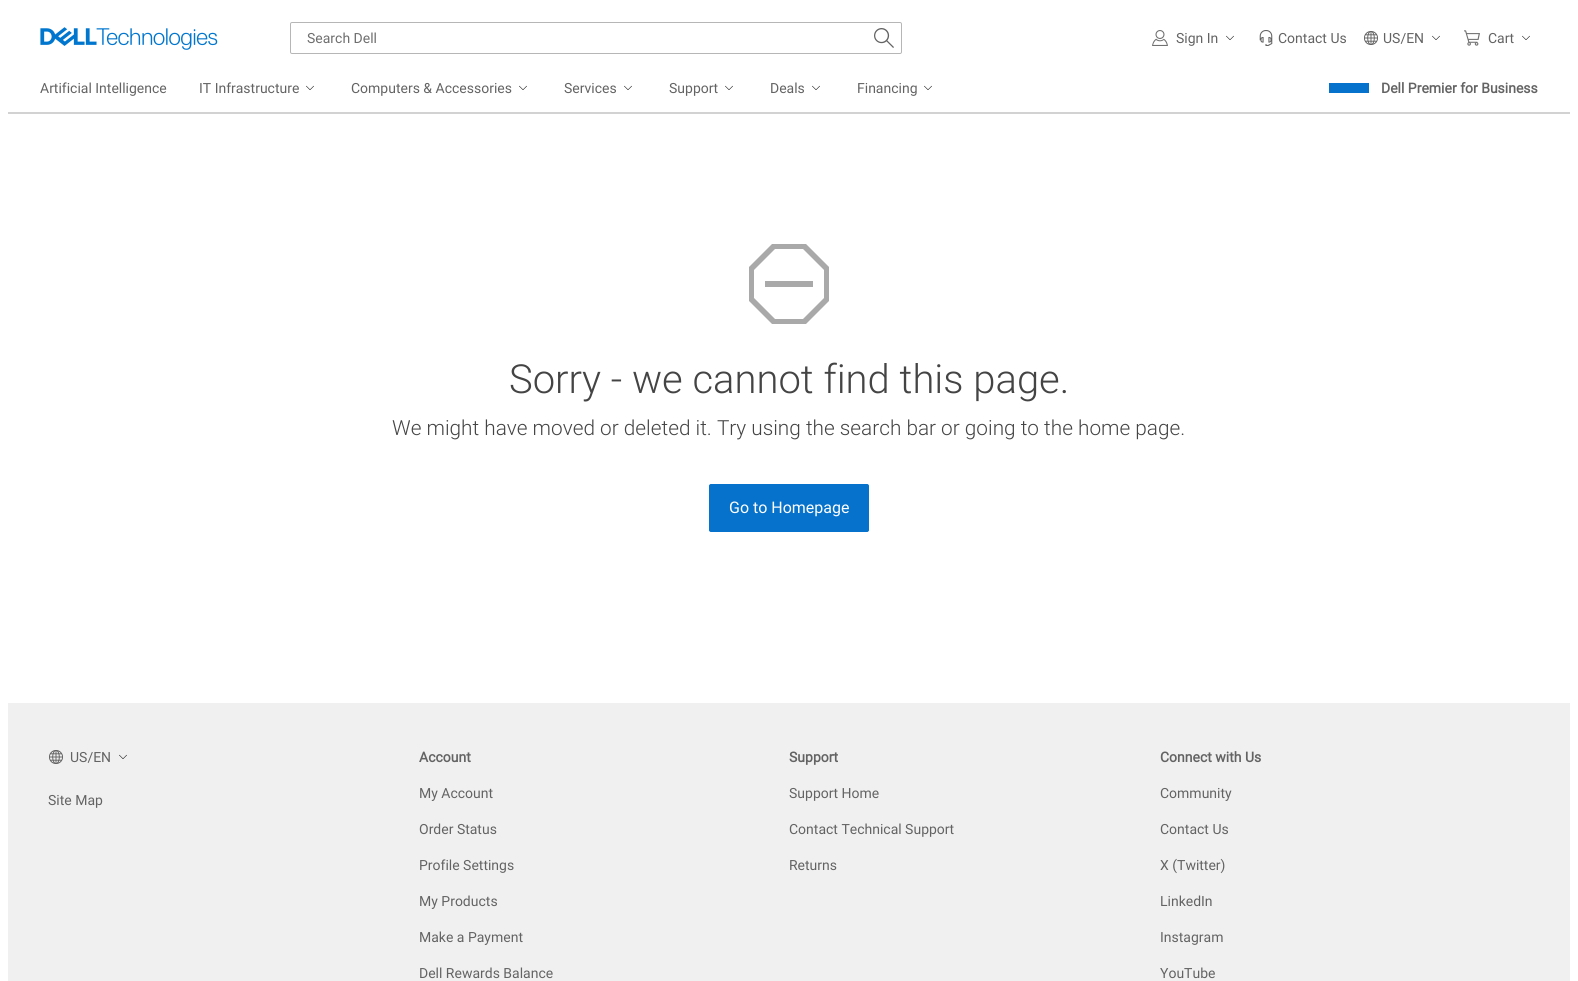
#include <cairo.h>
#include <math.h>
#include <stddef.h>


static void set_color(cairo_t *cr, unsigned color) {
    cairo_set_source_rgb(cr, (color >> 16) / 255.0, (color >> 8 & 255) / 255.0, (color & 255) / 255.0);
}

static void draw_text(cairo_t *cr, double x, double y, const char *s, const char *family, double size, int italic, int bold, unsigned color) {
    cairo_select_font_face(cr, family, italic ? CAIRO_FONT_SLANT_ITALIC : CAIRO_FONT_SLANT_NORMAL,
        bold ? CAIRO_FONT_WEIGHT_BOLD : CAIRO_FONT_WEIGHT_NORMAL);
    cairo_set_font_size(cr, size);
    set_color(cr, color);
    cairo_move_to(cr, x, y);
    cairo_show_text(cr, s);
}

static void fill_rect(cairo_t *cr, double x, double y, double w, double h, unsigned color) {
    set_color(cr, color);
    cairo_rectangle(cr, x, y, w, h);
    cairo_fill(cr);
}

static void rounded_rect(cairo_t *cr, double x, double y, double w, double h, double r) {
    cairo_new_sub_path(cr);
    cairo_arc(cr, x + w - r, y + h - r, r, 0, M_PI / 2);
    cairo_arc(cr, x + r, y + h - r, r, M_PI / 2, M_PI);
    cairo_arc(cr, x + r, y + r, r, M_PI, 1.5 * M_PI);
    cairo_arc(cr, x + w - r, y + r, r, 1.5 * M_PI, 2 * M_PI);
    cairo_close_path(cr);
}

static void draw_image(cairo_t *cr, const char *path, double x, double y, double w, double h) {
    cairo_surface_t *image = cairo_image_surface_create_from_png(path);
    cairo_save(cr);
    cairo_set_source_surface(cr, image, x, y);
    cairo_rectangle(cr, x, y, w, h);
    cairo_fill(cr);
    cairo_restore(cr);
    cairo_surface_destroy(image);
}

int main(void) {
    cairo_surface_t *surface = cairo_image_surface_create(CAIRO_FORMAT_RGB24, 1578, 981);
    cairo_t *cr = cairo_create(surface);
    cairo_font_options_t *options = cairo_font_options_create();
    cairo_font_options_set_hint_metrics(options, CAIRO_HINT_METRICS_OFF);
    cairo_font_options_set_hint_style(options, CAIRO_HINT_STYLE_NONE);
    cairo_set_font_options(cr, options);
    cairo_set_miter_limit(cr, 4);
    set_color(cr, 0xFFFFFF);
    cairo_paint(cr);
    fill_rect(cr, 8, 112, 1562, 2, 0xD2D2D2);
    draw_image(cr, "assets/img1.png", 40, 27, 178, 23);
    rounded_rect(cr, 290.5, 22.5, 611, 31, 1.5);
    set_color(cr, 0xB6B6B6);
    cairo_set_line_width(cr, 1);
    cairo_stroke(cr);
    draw_text(cr, 307, 43, "Search Dell", "Roboto", 14, 0, 0, 0x6E6E6E);
    draw_image(cr, "assets/img2.png", 874, 28, 20, 20);
    draw_image(cr, "assets/img3.png", 1152, 30, 16, 16);
    draw_text(cr, 1176, 43, "Sign In", "Roboto", 14, 0, 0, 0x636363);
    draw_image(cr, "assets/img4.png", 1226, 35, 8, 5);
    draw_image(cr, "assets/img5.png", 1259, 30, 14, 16);
    draw_text(cr, 1278, 43, "Contact Us", "Roboto", 14, 0, 0, 0x636363);
    draw_image(cr, "assets/img6.png", 1364, 31, 14, 14);
    draw_text(cr, 1383, 43, "US/EN", "Roboto", 14, 0, 0, 0x636363);
    draw_image(cr, "assets/img4.png", 1432, 35, 8, 5);
    draw_image(cr, "assets/img7.png", 1464, 30, 16, 16);
    draw_text(cr, 1488, 43, "Cart", "Roboto", 14, 0, 0, 0x636363);
    draw_image(cr, "assets/img4.png", 1522, 35, 8, 5);
    draw_text(cr, 40, 93, "Artificial Intelligence", "Roboto", 14, 0, 0, 0x636363);
    draw_text(cr, 199, 93, "IT Infrastructure", "Roboto", 14, 0, 0, 0x636363);
    draw_image(cr, "assets/img4.png", 306, 85, 8, 5);
    draw_text(cr, 351, 93, "Computers & Accessories", "Roboto", 14, 0, 0, 0x636363);
    draw_image(cr, "assets/img4.png", 519, 85, 8, 5);
    draw_text(cr, 564, 93, "Services", "Roboto", 14, 0, 0, 0x636363);
    draw_image(cr, "assets/img4.png", 624, 85, 8, 5);
    draw_text(cr, 669, 93, "Support", "Roboto", 14, 0, 0, 0x636363);
    draw_image(cr, "assets/img4.png", 725, 85, 8, 5);
    draw_text(cr, 770, 93, "Deals", "Roboto", 14, 0, 0, 0x636363);
    draw_image(cr, "assets/img4.png", 812, 85, 8, 5);
    draw_text(cr, 857, 93, "Financing", "Roboto", 14, 0, 0, 0x636363);
    draw_image(cr, "assets/img4.png", 924, 85, 8, 5);
    fill_rect(cr, 1329, 83, 40, 10, 0x0672CB);
    draw_text(cr, 1381, 93, "Dell Premier for Business", "Roboto", 14, 0, 1, 0x636363);
    set_color(cr, 0xA9A9A9);
    cairo_new_path(cr);
    cairo_move_to(cr, 806, 244);
    cairo_line_to(cr, 772, 244);
    cairo_line_to(cr, 749, 267);
    cairo_line_to(cr, 749, 301);
    cairo_line_to(cr, 772, 324);
    cairo_line_to(cr, 806, 324);
    cairo_line_to(cr, 829, 301);
    cairo_line_to(cr, 829, 267);
    cairo_close_path(cr);
    cairo_move_to(cr, 824, 298);
    cairo_line_to(cr, 803, 319);
    cairo_line_to(cr, 775, 319);
    cairo_line_to(cr, 754, 298);
    cairo_line_to(cr, 754, 270);
    cairo_line_to(cr, 775, 249);
    cairo_line_to(cr, 803, 249);
    cairo_line_to(cr, 824, 270);
    cairo_close_path(cr);
    cairo_move_to(cr, 765, 281);
    cairo_line_to(cr, 813, 281);
    cairo_line_to(cr, 813, 287);
    cairo_line_to(cr, 765, 287);
    cairo_close_path(cr);
    cairo_fill(cr);
    draw_text(cr, 509, 393, "Sorry - we cannot find this page.", "Roboto Light", 40, 0, 0, 0x444444);
    draw_text(cr, 392, 435, "We might have moved or deleted it. Try using the search bar or going to the home page.", "Roboto Light", 20.8, 0, 0, 0x444444);
    set_color(cr, 0x0672CB);
    rounded_rect(cr, 709.5, 484.5, 159, 47, 1.5);
    cairo_fill_preserve(cr);
    cairo_stroke(cr);
    draw_text(cr, 729, 513, "Go to Homepage", "Roboto", 16, 0, 0, 0xFFFFFF);
    fill_rect(cr, 8, 703, 1562, 278, 0xF0F0F0);
    draw_image(cr, "assets/img8.png", 49, 750, 14, 14);
    draw_text(cr, 70, 762, "US/EN", "Roboto", 14, 0, 0, 0x636363);
    draw_image(cr, "assets/img9.png", 119, 754, 8, 5);
    draw_text(cr, 48, 805, "Site Map", "Roboto", 14, 0, 0, 0x636363);
    draw_text(cr, 419, 762, "Account", "Roboto", 14, 0, 1, 0x636363);
    draw_text(cr, 419, 798, "My Account", "Roboto", 14, 0, 0, 0x636363);
    draw_text(cr, 419, 834, "Order Status", "Roboto", 14, 0, 0, 0x636363);
    draw_text(cr, 419, 870, "Profile Settings", "Roboto", 14, 0, 0, 0x636363);
    draw_text(cr, 419, 906, "My Products", "Roboto", 14, 0, 0, 0x636363);
    draw_text(cr, 419, 942, "Make a Payment", "Roboto", 14, 0, 0, 0x636363);
    draw_text(cr, 419, 978, "Dell Rewards Balance", "Roboto", 14, 0, 0, 0x636363);
    draw_text(cr, 789, 762, "Support", "Roboto", 14, 0, 1, 0x636363);
    draw_text(cr, 789, 798, "Support Home", "Roboto", 14, 0, 0, 0x636363);
    draw_text(cr, 789, 834, "Contact Technical Support", "Roboto", 14, 0, 0, 0x636363);
    draw_text(cr, 789, 870, "Returns", "Roboto", 14, 0, 0, 0x636363);
    draw_text(cr, 1160, 762, "Connect with Us", "Roboto", 14, 0, 1, 0x636363);
    draw_text(cr, 1160, 798, "Community", "Roboto", 14, 0, 0, 0x636363);
    draw_text(cr, 1160, 834, "Contact Us", "Roboto", 14, 0, 0, 0x636363);
    draw_text(cr, 1160, 870, "X (Twitter)", "Roboto", 14, 0, 0, 0x636363);
    draw_text(cr, 1160, 906, "LinkedIn", "Roboto", 14, 0, 0, 0x636363);
    draw_text(cr, 1160, 942, "Instagram", "Roboto", 14, 0, 0, 0x636363);
    draw_text(cr, 1160, 978, "YouTube", "Roboto", 14, 0, 0, 0x636363);
    cairo_surface_write_to_png(surface, "output.png");
    cairo_font_options_destroy(options);
    cairo_destroy(cr);
    cairo_surface_destroy(surface);
    return 0;
}
